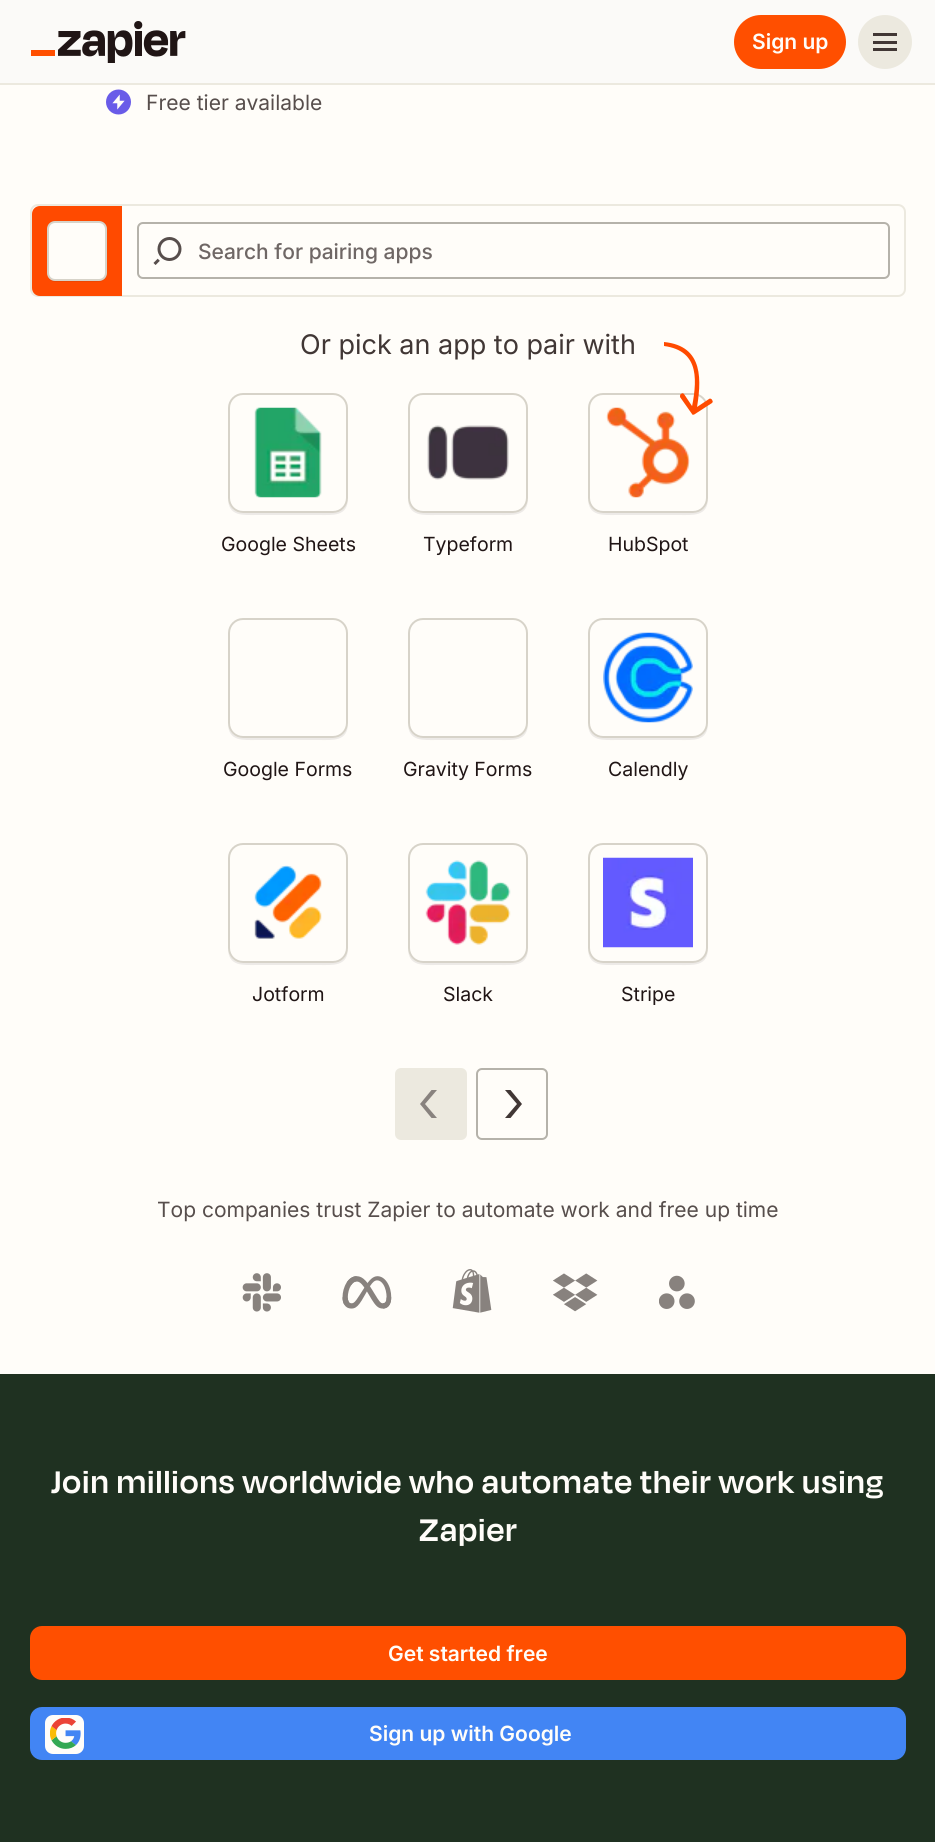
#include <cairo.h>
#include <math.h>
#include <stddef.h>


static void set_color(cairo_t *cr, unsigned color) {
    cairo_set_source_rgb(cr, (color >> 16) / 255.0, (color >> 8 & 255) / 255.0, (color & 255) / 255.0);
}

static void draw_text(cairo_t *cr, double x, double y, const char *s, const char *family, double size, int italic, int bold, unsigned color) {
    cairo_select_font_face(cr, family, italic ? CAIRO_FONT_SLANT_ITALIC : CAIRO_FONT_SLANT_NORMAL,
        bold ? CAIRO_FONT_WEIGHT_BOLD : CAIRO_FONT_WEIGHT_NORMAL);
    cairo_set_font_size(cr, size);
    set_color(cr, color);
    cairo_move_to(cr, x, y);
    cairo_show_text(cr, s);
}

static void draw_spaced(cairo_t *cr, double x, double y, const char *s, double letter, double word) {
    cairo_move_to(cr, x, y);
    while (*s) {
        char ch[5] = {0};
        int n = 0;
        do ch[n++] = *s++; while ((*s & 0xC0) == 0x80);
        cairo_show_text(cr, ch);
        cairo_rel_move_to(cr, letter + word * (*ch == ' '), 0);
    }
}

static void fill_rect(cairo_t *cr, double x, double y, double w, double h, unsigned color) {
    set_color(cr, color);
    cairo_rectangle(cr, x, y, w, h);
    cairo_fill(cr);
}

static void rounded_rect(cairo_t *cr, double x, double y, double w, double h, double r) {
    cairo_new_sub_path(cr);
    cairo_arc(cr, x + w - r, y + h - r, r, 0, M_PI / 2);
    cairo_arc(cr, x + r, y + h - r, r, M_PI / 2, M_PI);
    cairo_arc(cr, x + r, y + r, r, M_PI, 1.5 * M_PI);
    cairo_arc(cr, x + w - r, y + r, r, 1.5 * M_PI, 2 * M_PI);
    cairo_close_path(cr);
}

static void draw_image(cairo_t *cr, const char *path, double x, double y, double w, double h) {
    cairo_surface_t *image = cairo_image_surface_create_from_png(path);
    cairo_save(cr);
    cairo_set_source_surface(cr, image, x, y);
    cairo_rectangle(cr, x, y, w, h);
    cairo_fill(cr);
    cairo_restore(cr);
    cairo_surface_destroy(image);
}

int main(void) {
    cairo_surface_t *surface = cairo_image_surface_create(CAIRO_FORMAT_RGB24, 935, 1842);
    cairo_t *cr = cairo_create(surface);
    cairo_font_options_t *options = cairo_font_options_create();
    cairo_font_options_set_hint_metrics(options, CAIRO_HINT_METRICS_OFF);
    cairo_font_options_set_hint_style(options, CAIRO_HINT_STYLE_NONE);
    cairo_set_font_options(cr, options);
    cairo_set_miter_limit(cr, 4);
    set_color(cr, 0xFFFDF9);
    cairo_paint(cr);
    fill_rect(cr, 0, 0, 935, 83, 0xFBFAF8);
    fill_rect(cr, 0, 83, 935, 2, 0xECE9DF);
    draw_image(cr, "assets/img1.png", 31, 21, 155, 42);
    set_color(cr, 0xFF4F00);
    rounded_rect(cr, 734, 15, 112, 54, 27);
    cairo_fill(cr);
    draw_text(cr, 752, 49, "Sign up", "Inter SemiBold", 21, 0, 0, 0xFFFDF9);
    set_color(cr, 0xECE9DF);
    cairo_new_path(cr);
    cairo_arc(cr, 885, 42, 27, 0, 2 * M_PI);
    cairo_fill(cr);
    fill_rect(cr, 873, 33, 24, 3, 0x413735);
    fill_rect(cr, 873, 41, 24, 3, 0x413735);
    fill_rect(cr, 873, 48, 24, 3, 0x413735);
    draw_image(cr, "assets/img2.png", 106, 89, 25, 26);
    draw_text(cr, 146, 110, "Free tier available", "Inter", 21, 0, 0, 0x574E4C);
    rounded_rect(cr, 31, 205, 874, 91, 7);
    set_color(cr, 0xECE9DF);
    cairo_stroke(cr);
    set_color(cr, 0xFF4A00);
    cairo_new_path(cr);
    cairo_move_to(cr, 40, 206);
    cairo_line_to(cr, 122, 206);
    cairo_line_to(cr, 122, 296);
    cairo_line_to(cr, 40, 296);
    cairo_curve_to(cr, 35.5, 296, 32, 292.5, 32, 288);
    cairo_line_to(cr, 32, 214);
    cairo_curve_to(cr, 32, 209.5, 35.5, 206, 40, 206);
    cairo_close_path(cr);
    cairo_fill(cr);
    set_color(cr, 0xED4602);
    cairo_new_path(cr);
    cairo_move_to(cr, 47, 277);
    cairo_curve_to(cr, 49, 280, 52, 282, 55, 282);
    cairo_line_to(cr, 99, 282);
    cairo_curve_to(cr, 103, 282, 107, 278, 107, 274);
    cairo_line_to(cr, 107, 230);
    cairo_line_to(cr, 106, 227);
    cairo_line_to(cr, 106, 275);
    cairo_curve_to(cr, 105, 282, 97, 280, 92, 280);
    cairo_line_to(cr, 62, 280);
    cairo_curve_to(cr, 57, 280, 50, 282, 47, 277);
    cairo_close_path(cr);
    cairo_fill(cr);
    set_color(cr, 0xFFFDF9);
    rounded_rect(cr, 48, 222, 58, 58, 7);
    cairo_fill_preserve(cr);
    set_color(cr, 0xD7D3C9);
    cairo_stroke(cr);
    rounded_rect(cr, 138, 223, 751, 55, 5);
    set_color(cr, 0xB5B2AA);
    cairo_stroke(cr);
    draw_image(cr, "assets/img3.png", 153, 237, 29, 28);
    draw_text(cr, 198, 259, "Search for pairing apps", "Inter Medium", 21, 0, 0, 0x6F6765);
    draw_text(cr, 300, 354, "Or pick an app to pair with", "Inter", 27, 0, 0, 0x413735);
    set_color(cr, 0xEDEAE7);
    cairo_new_path(cr);
    cairo_move_to(cr, 588, 498);
    cairo_curve_to(cr, 588, 517, 603, 515, 618, 515);
    cairo_line_to(cr, 678, 515);
    cairo_curve_to(cr, 693, 515, 708, 517, 708, 498);
    cairo_curve_to(cr, 708, 506, 701, 513, 693, 513);
    cairo_line_to(cr, 603, 513);
    cairo_curve_to(cr, 595, 513, 588, 506, 588, 498);
    cairo_close_path(cr);
    cairo_fill(cr);
    set_color(cr, 0xFFFDF9);
    rounded_rect(cr, 589, 394, 118, 118, 14);
    cairo_fill_preserve(cr);
    set_color(cr, 0xD7D3C9);
    cairo_stroke(cr);
    draw_image(cr, "assets/img6.png", 606, 407, 84, 91);
    set_color(cr, 0xFF4A00);
    cairo_new_path(cr);
    cairo_move_to(cr, 692, 414);
    cairo_curve_to(cr, 692, 415, 694, 415, 695, 414);
    cairo_line_to(cr, 712, 403);
    cairo_curve_to(cr, 713, 402, 713, 401, 712, 400);
    cairo_curve_to(cr, 712, 399, 710, 398, 709, 399);
    cairo_line_to(cr, 694, 409);
    cairo_line_to(cr, 684, 394);
    cairo_curve_to(cr, 683, 393, 682, 393, 681, 394);
    cairo_curve_to(cr, 680, 394, 680, 396, 680, 397);
    cairo_close_path(cr);
    cairo_move_to(cr, 696, 413);
    cairo_curve_to(cr, 702, 380, 704, 346, 664, 342);
    cairo_line_to(cr, 664, 346);
    cairo_curve_to(cr, 701, 351, 697, 382, 691, 412);
    cairo_close_path(cr);
    cairo_fill(cr);
    set_color(cr, 0xEDEAE7);
    cairo_new_path(cr);
    cairo_move_to(cr, 228, 498);
    cairo_curve_to(cr, 228, 517, 243, 515, 258, 515);
    cairo_line_to(cr, 318, 515);
    cairo_curve_to(cr, 333, 515, 348, 517, 348, 498);
    cairo_curve_to(cr, 348, 506, 341, 513, 333, 513);
    cairo_line_to(cr, 243, 513);
    cairo_curve_to(cr, 235, 513, 228, 506, 228, 498);
    cairo_close_path(cr);
    cairo_fill(cr);
    set_color(cr, 0xFFFDF9);
    rounded_rect(cr, 229, 394, 118, 118, 14);
    cairo_fill_preserve(cr);
    set_color(cr, 0xD7D3C9);
    cairo_stroke(cr);
    draw_image(cr, "assets/img4.png", 254, 407, 68, 91);
    draw_text(cr, 221, 551, "Google Sheets", "Inter", 19.5, 0, 0, 0x201515);
    set_color(cr, 0xEDEAE7);
    cairo_new_path(cr);
    cairo_move_to(cr, 408, 498);
    cairo_curve_to(cr, 408, 517, 423, 515, 438, 515);
    cairo_line_to(cr, 498, 515);
    cairo_curve_to(cr, 513, 515, 528, 517, 528, 498);
    cairo_curve_to(cr, 528, 506, 521, 513, 513, 513);
    cairo_line_to(cr, 423, 513);
    cairo_curve_to(cr, 415, 513, 408, 506, 408, 498);
    cairo_close_path(cr);
    cairo_fill(cr);
    set_color(cr, 0xFFFDF9);
    rounded_rect(cr, 409, 394, 118, 118, 14);
    cairo_fill_preserve(cr);
    set_color(cr, 0xD7D3C9);
    cairo_stroke(cr);
    draw_image(cr, "assets/img5.png", 427, 425, 82, 55);
    draw_text(cr, 423, 551, "Typeform", "Inter", 19.5, 0, 0, 0x201515);
    draw_text(cr, 608, 551, "HubSpot", "Inter", 19.5, 0, 0, 0x201515);
    set_color(cr, 0xEDEAE7);
    cairo_new_path(cr);
    cairo_move_to(cr, 228, 723);
    cairo_curve_to(cr, 228, 742, 243, 740, 258, 740);
    cairo_line_to(cr, 318, 740);
    cairo_curve_to(cr, 333, 740, 348, 742, 348, 723);
    cairo_curve_to(cr, 348, 731, 341, 738, 333, 738);
    cairo_line_to(cr, 243, 738);
    cairo_curve_to(cr, 235, 738, 228, 731, 228, 723);
    cairo_close_path(cr);
    cairo_fill(cr);
    set_color(cr, 0xFFFDF9);
    rounded_rect(cr, 229, 619, 118, 118, 14);
    cairo_fill_preserve(cr);
    set_color(cr, 0xD7D3C9);
    cairo_stroke(cr);
    draw_text(cr, 223, 776, "Google Forms", "Inter", 19.5, 0, 0, 0x201515);
    set_color(cr, 0xEDEAE7);
    cairo_new_path(cr);
    cairo_move_to(cr, 408, 723);
    cairo_curve_to(cr, 408, 742, 423, 740, 438, 740);
    cairo_line_to(cr, 498, 740);
    cairo_curve_to(cr, 513, 740, 528, 742, 528, 723);
    cairo_curve_to(cr, 528, 731, 521, 738, 513, 738);
    cairo_line_to(cr, 423, 738);
    cairo_curve_to(cr, 415, 738, 408, 731, 408, 723);
    cairo_close_path(cr);
    cairo_fill(cr);
    set_color(cr, 0xFFFDF9);
    rounded_rect(cr, 409, 619, 118, 118, 14);
    cairo_fill_preserve(cr);
    set_color(cr, 0xD7D3C9);
    cairo_stroke(cr);
    draw_text(cr, 403, 776, "Gravity Forms", "Inter", 19.5, 0, 0, 0x201515);
    set_color(cr, 0xEDEAE7);
    cairo_new_path(cr);
    cairo_move_to(cr, 588, 723);
    cairo_curve_to(cr, 588, 742, 603, 740, 618, 740);
    cairo_line_to(cr, 678, 740);
    cairo_curve_to(cr, 693, 740, 708, 742, 708, 723);
    cairo_curve_to(cr, 708, 731, 701, 738, 693, 738);
    cairo_line_to(cr, 603, 738);
    cairo_curve_to(cr, 595, 738, 588, 731, 588, 723);
    cairo_close_path(cr);
    cairo_fill(cr);
    set_color(cr, 0xFFFDF9);
    rounded_rect(cr, 589, 619, 118, 118, 14);
    cairo_fill_preserve(cr);
    set_color(cr, 0xD7D3C9);
    cairo_stroke(cr);
    draw_image(cr, "assets/img7.png", 603, 632, 90, 91);
    draw_text(cr, 608, 776, "Calendly", "Inter", 19.5, 0, 0, 0x201515);
    set_color(cr, 0xEDEAE7);
    cairo_new_path(cr);
    cairo_move_to(cr, 228, 948);
    cairo_curve_to(cr, 228, 967, 243, 965, 258, 965);
    cairo_line_to(cr, 318, 965);
    cairo_curve_to(cr, 333, 965, 348, 967, 348, 948);
    cairo_curve_to(cr, 348, 956, 341, 963, 333, 963);
    cairo_line_to(cr, 243, 963);
    cairo_curve_to(cr, 235, 963, 228, 956, 228, 948);
    cairo_close_path(cr);
    cairo_fill(cr);
    set_color(cr, 0xFFFDF9);
    rounded_rect(cr, 229, 844, 118, 118, 14);
    cairo_fill_preserve(cr);
    set_color(cr, 0xD7D3C9);
    cairo_stroke(cr);
    draw_image(cr, "assets/img8.png", 254, 865, 68, 74);
    draw_text(cr, 252, 1001, "Jotform", "Inter", 19.5, 0, 0, 0x201515);
    set_color(cr, 0xEDEAE7);
    cairo_new_path(cr);
    cairo_move_to(cr, 408, 948);
    cairo_curve_to(cr, 408, 967, 423, 965, 438, 965);
    cairo_line_to(cr, 498, 965);
    cairo_curve_to(cr, 513, 965, 528, 967, 528, 948);
    cairo_curve_to(cr, 528, 956, 521, 963, 513, 963);
    cairo_line_to(cr, 423, 963);
    cairo_curve_to(cr, 415, 963, 408, 956, 408, 948);
    cairo_close_path(cr);
    cairo_fill(cr);
    set_color(cr, 0xFFFDF9);
    rounded_rect(cr, 409, 844, 118, 118, 14);
    cairo_fill_preserve(cr);
    set_color(cr, 0xD7D3C9);
    cairo_stroke(cr);
    draw_image(cr, "assets/img9.png", 425, 860, 86, 85);
    draw_text(cr, 443, 1001, "Slack", "Inter", 19.5, 0, 0, 0x201515);
    set_color(cr, 0xEDEAE7);
    cairo_new_path(cr);
    cairo_move_to(cr, 588, 948);
    cairo_curve_to(cr, 588, 967, 603, 965, 618, 965);
    cairo_line_to(cr, 678, 965);
    cairo_curve_to(cr, 693, 965, 708, 967, 708, 948);
    cairo_curve_to(cr, 708, 956, 701, 963, 693, 963);
    cairo_line_to(cr, 603, 963);
    cairo_curve_to(cr, 595, 963, 588, 956, 588, 948);
    cairo_close_path(cr);
    cairo_fill(cr);
    set_color(cr, 0xFFFDF9);
    rounded_rect(cr, 589, 844, 118, 118, 14);
    cairo_fill_preserve(cr);
    set_color(cr, 0xD7D3C9);
    cairo_stroke(cr);
    draw_image(cr, "assets/img10.png", 603, 857, 90, 91);
    draw_text(cr, 621, 1001, "Stripe", "Inter", 19.5, 0, 0, 0x201515);
    set_color(cr, 0xECE9DF);
    rounded_rect(cr, 395, 1068, 72, 72, 6);
    cairo_fill(cr);
    set_color(cr, 0x88827E);
    cairo_new_path(cr);
    cairo_move_to(cr, 425, 1104);
    cairo_line_to(cr, 437, 1090);
    cairo_line_to(cr, 431.5, 1090);
    cairo_line_to(cr, 420, 1104);
    cairo_line_to(cr, 431.5, 1118);
    cairo_line_to(cr, 437, 1118);
    cairo_close_path(cr);
    cairo_fill(cr);
    rounded_rect(cr, 477, 1069, 70, 70, 5);
    set_color(cr, 0xB5B2AA);
    cairo_stroke(cr);
    set_color(cr, 0x413735);
    cairo_new_path(cr);
    cairo_move_to(cr, 510.5, 1090);
    cairo_line_to(cr, 505, 1090);
    cairo_line_to(cr, 517, 1104);
    cairo_line_to(cr, 505, 1118);
    cairo_line_to(cr, 510.5, 1118);
    cairo_line_to(cr, 522, 1104);
    cairo_close_path(cr);
    cairo_fill(cr);
    draw_text(cr, 157, 1217, "Top companies trust Zapier to automate work and free up time", "Inter", 21, 0, 0, 0x574E4C);
    draw_image(cr, "assets/img11.png", 242, 1273, 39, 39);
    draw_image(cr, "assets/img12.png", 342, 1276, 50, 33);
    draw_image(cr, "assets/img13.png", 452, 1269, 40, 44);
    draw_image(cr, "assets/img14.png", 553, 1273, 45, 39);
    draw_image(cr, "assets/img15.png", 659, 1275, 36, 34);
    fill_rect(cr, 0, 1374, 935, 468, 0x1F3121);
    cairo_select_font_face(cr, "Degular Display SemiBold", CAIRO_FONT_SLANT_NORMAL, CAIRO_FONT_WEIGHT_NORMAL);
    cairo_set_font_size(cr, 36);
    set_color(cr, 0xFFFDF9);
    draw_spaced(cr, 51, 1493, "Join millions worldwide who automate their work using", 1.5, 0);
    draw_spaced(cr, 419, 1541, "Zapier", 1.5, 0);
    set_color(cr, 0xFF4F00);
    rounded_rect(cr, 30, 1626, 876, 54, 12);
    cairo_fill(cr);
    draw_text(cr, 388, 1661, "Get started free", "Inter SemiBold", 21, 0, 0, 0xFFFDF9);
    set_color(cr, 0x4285F4);
    rounded_rect(cr, 30, 1707, 876, 53, 12);
    cairo_fill(cr);
    set_color(cr, 0xFFFDF9);
    rounded_rect(cr, 45, 1715, 39, 39, 8);
    cairo_fill(cr);
    draw_image(cr, "assets/img16.png", 50, 1718, 31, 31);
    draw_text(cr, 369, 1741, "Sign up with Google", "Inter SemiBold", 21, 0, 0, 0xFFFDF9);
    cairo_surface_write_to_png(surface, "output.png");
    cairo_font_options_destroy(options);
    cairo_destroy(cr);
    cairo_surface_destroy(surface);
    return 0;
}
